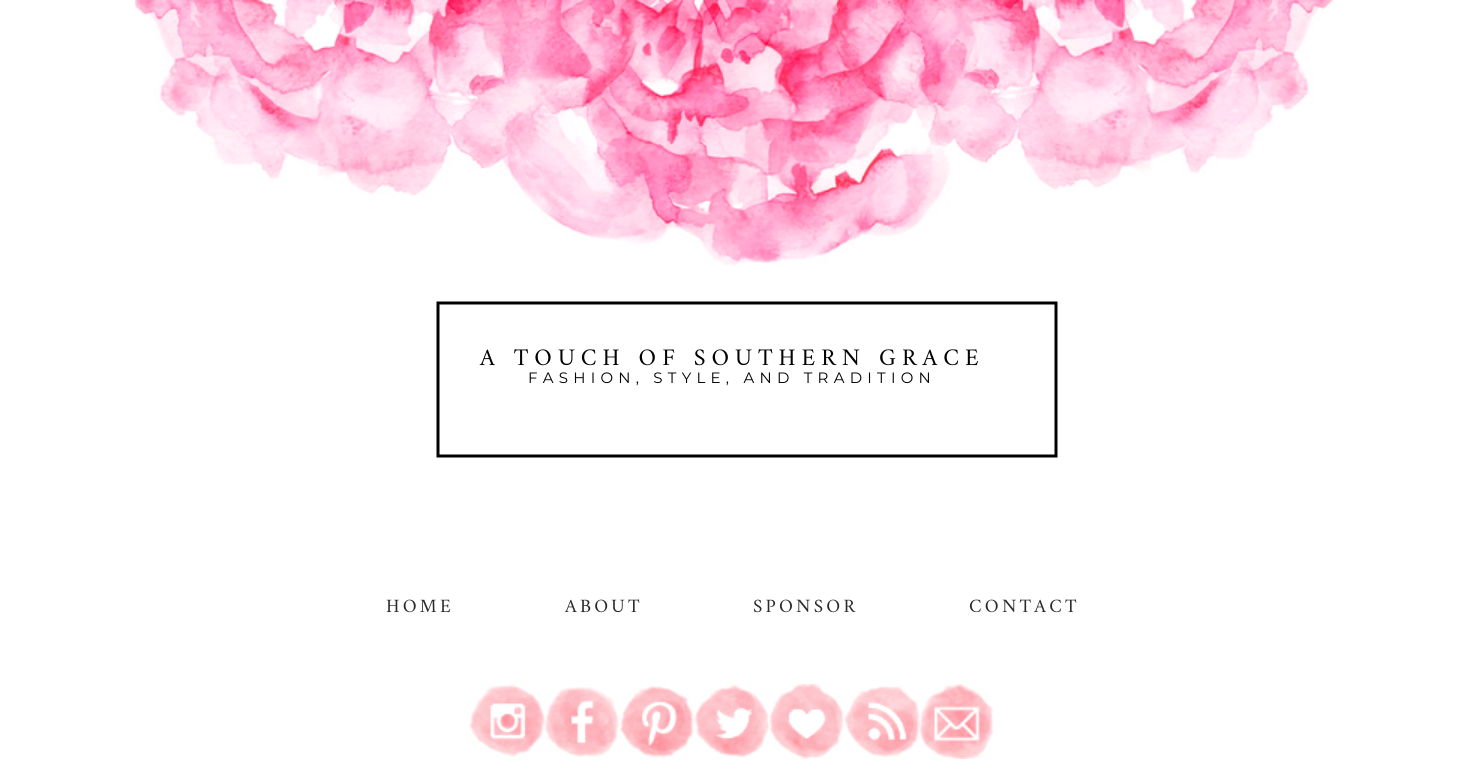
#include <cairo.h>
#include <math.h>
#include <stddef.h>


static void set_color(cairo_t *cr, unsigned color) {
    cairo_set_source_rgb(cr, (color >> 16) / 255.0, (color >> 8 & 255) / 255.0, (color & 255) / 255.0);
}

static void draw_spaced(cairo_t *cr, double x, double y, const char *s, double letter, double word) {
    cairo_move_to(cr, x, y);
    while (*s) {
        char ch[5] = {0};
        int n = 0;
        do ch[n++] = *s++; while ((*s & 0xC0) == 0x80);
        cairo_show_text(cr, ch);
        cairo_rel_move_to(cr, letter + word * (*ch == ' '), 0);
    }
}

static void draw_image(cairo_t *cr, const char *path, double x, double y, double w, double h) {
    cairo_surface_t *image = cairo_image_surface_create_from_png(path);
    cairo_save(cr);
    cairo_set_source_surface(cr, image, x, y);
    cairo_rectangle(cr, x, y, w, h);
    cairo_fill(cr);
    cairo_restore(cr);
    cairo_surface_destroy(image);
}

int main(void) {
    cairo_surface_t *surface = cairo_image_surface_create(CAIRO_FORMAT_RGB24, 1464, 771);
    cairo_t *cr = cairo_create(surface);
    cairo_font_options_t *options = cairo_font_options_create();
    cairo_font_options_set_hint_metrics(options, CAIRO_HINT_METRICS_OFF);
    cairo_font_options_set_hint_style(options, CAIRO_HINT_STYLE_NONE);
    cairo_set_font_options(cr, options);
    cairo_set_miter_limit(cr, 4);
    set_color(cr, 0xFFFFFF);
    cairo_paint(cr);
    draw_image(cr, "assets/img1.png", 134, 0, 1200, 266);
    draw_image(cr, "assets/img2.png", 436, 301, 622, 157);
    cairo_select_font_face(cr, "Amiri", CAIRO_FONT_SLANT_NORMAL, CAIRO_FONT_WEIGHT_NORMAL);
    cairo_set_font_size(cr, 24);
    set_color(cr, 0x000000);
    draw_spaced(cr, 480, 365, "A TOUCH OF SOUTHERN GRACE", 6, 0);
    cairo_select_font_face(cr, "Montserrat Thin", CAIRO_FONT_SLANT_NORMAL, CAIRO_FONT_WEIGHT_NORMAL);
    cairo_set_font_size(cr, 15);
    draw_spaced(cr, 528, 383, "FASHION, STYLE, AND TRADITION", 5.25, 0);
    cairo_select_font_face(cr, "Amiri", CAIRO_FONT_SLANT_NORMAL, CAIRO_FONT_WEIGHT_NORMAL);
    cairo_set_font_size(cr, 19);
    set_color(cr, 0x2A2A2A);
    draw_spaced(cr, 386, 612, "HOME", 3.25, 0);
    draw_spaced(cr, 565, 612, "ABOUT", 3.25, 0);
    draw_spaced(cr, 753, 612, "SPONSOR", 3.25, 0);
    draw_spaced(cr, 969, 612, "CONTACT", 3.25, 0);
    draw_image(cr, "assets/img3.png", 469, 684, 76, 73);
    draw_image(cr, "assets/img4.png", 544, 687, 76, 70);
    draw_image(cr, "assets/img5.png", 619, 685, 75, 74);
    draw_image(cr, "assets/img6.png", 694, 684, 76, 74);
    draw_image(cr, "assets/img7.png", 769, 684, 75, 75);
    draw_image(cr, "assets/img8.png", 844, 686, 76, 72);
    draw_image(cr, "assets/img9.png", 919, 684, 75, 75);
    cairo_surface_write_to_png(surface, "output.png");
    cairo_font_options_destroy(options);
    cairo_destroy(cr);
    cairo_surface_destroy(surface);
    return 0;
}
